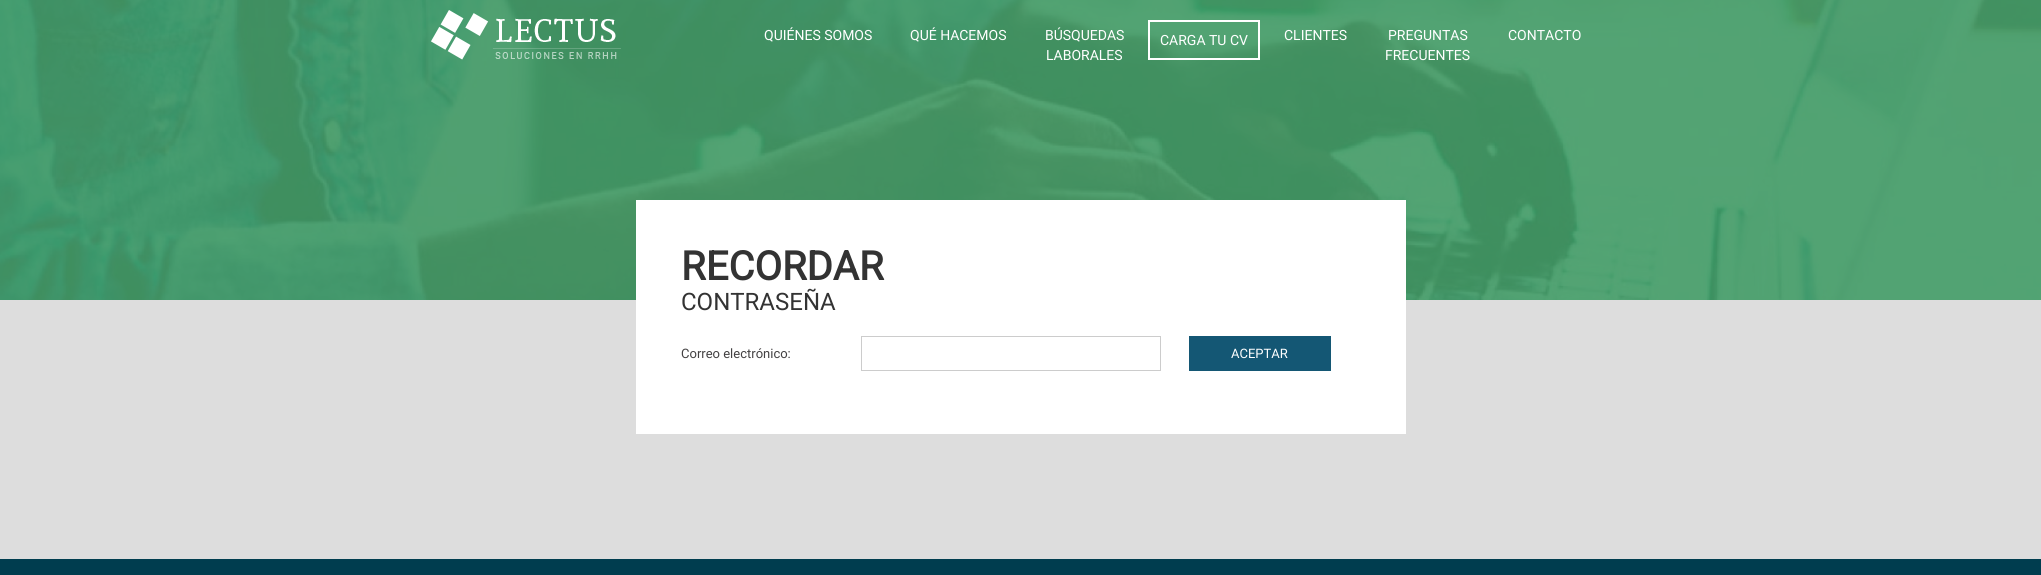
#include <cairo.h>
#include <math.h>
#include <stddef.h>


static void set_color(cairo_t *cr, unsigned color) {
    cairo_set_source_rgb(cr, (color >> 16) / 255.0, (color >> 8 & 255) / 255.0, (color & 255) / 255.0);
}

static void draw_text(cairo_t *cr, double x, double y, const char *s, const char *family, double size, int italic, int bold, unsigned color) {
    cairo_select_font_face(cr, family, italic ? CAIRO_FONT_SLANT_ITALIC : CAIRO_FONT_SLANT_NORMAL,
        bold ? CAIRO_FONT_WEIGHT_BOLD : CAIRO_FONT_WEIGHT_NORMAL);
    cairo_set_font_size(cr, size);
    set_color(cr, color);
    cairo_move_to(cr, x, y);
    cairo_show_text(cr, s);
}

static void fill_rect(cairo_t *cr, double x, double y, double w, double h, unsigned color) {
    set_color(cr, color);
    cairo_rectangle(cr, x, y, w, h);
    cairo_fill(cr);
}

static void draw_image(cairo_t *cr, const char *path, double x, double y, double w, double h) {
    cairo_surface_t *image = cairo_image_surface_create_from_png(path);
    cairo_save(cr);
    cairo_set_source_surface(cr, image, x, y);
    cairo_rectangle(cr, x, y, w, h);
    cairo_fill(cr);
    cairo_restore(cr);
    cairo_surface_destroy(image);
}

int main(void) {
    cairo_surface_t *surface = cairo_image_surface_create(CAIRO_FORMAT_RGB24, 2041, 575);
    cairo_t *cr = cairo_create(surface);
    cairo_font_options_t *options = cairo_font_options_create();
    cairo_font_options_set_hint_metrics(options, CAIRO_HINT_METRICS_OFF);
    cairo_font_options_set_hint_style(options, CAIRO_HINT_STYLE_NONE);
    cairo_set_font_options(cr, options);
    cairo_set_miter_limit(cr, 4);
    set_color(cr, 0xDDDDDD);
    cairo_paint(cr);
    draw_image(cr, "assets/img1.png", 0, 0, 2041, 300);
    draw_image(cr, "assets/img2.png", 431, 10, 190, 50);
    draw_text(cr, 764, 40, "QUIÉNES SOMOS", "Roboto", 14, 0, 0, 0xFFFFFF);
    draw_text(cr, 910, 40, "QUÉ HACEMOS", "Roboto", 14, 0, 0, 0xFFFFFF);
    draw_text(cr, 1045, 40, "BÚSQUEDAS", "Roboto", 14, 0, 0, 0xFFFFFF);
    draw_text(cr, 1046, 60, "LABORALES", "Roboto", 14, 0, 0, 0xFFFFFF);
    cairo_rectangle(cr, 1149, 21, 110, 38);
    cairo_stroke(cr);
    draw_text(cr, 1160, 45, "CARGA TU CV", "Roboto", 14, 0, 0, 0xFFFFFF);
    draw_text(cr, 1284, 40, "CLIENTES", "Roboto", 14, 0, 0, 0xFFFFFF);
    draw_text(cr, 1388, 40, "PREGUNTAS", "Roboto", 14, 0, 0, 0xFFFFFF);
    draw_text(cr, 1385, 60, "FRECUENTES", "Roboto", 14, 0, 0, 0xFFFFFF);
    draw_text(cr, 1508, 40, "CONTACTO", "Roboto", 14, 0, 0, 0xFFFFFF);
    fill_rect(cr, 636, 200, 770, 234, 0xFFFFFF);
    draw_text(cr, 681, 280, "RECORDAR", "Roboto", 40, 0, 1, 0x333333);
    draw_text(cr, 681, 310, "CONTRASEÑA", "Roboto", 24, 0, 0, 0x333333);
    draw_text(cr, 681, 358, "Correo electrónico:", "Roboto", 13, 0, 0, 0x434142);
    cairo_rectangle(cr, 861.5, 336.5, 299, 34);
    set_color(cr, 0xCCCCCC);
    cairo_set_line_width(cr, 1);
    cairo_stroke(cr);
    fill_rect(cr, 1189, 336, 142, 35, 0x145774);
    draw_text(cr, 1231, 358, "ACEPTAR", "Roboto", 13, 0, 0, 0xFFFFFF);
    fill_rect(cr, 0, 559, 2041, 16, 0x003D4F);
    cairo_surface_write_to_png(surface, "output.png");
    cairo_font_options_destroy(options);
    cairo_destroy(cr);
    cairo_surface_destroy(surface);
    return 0;
}
